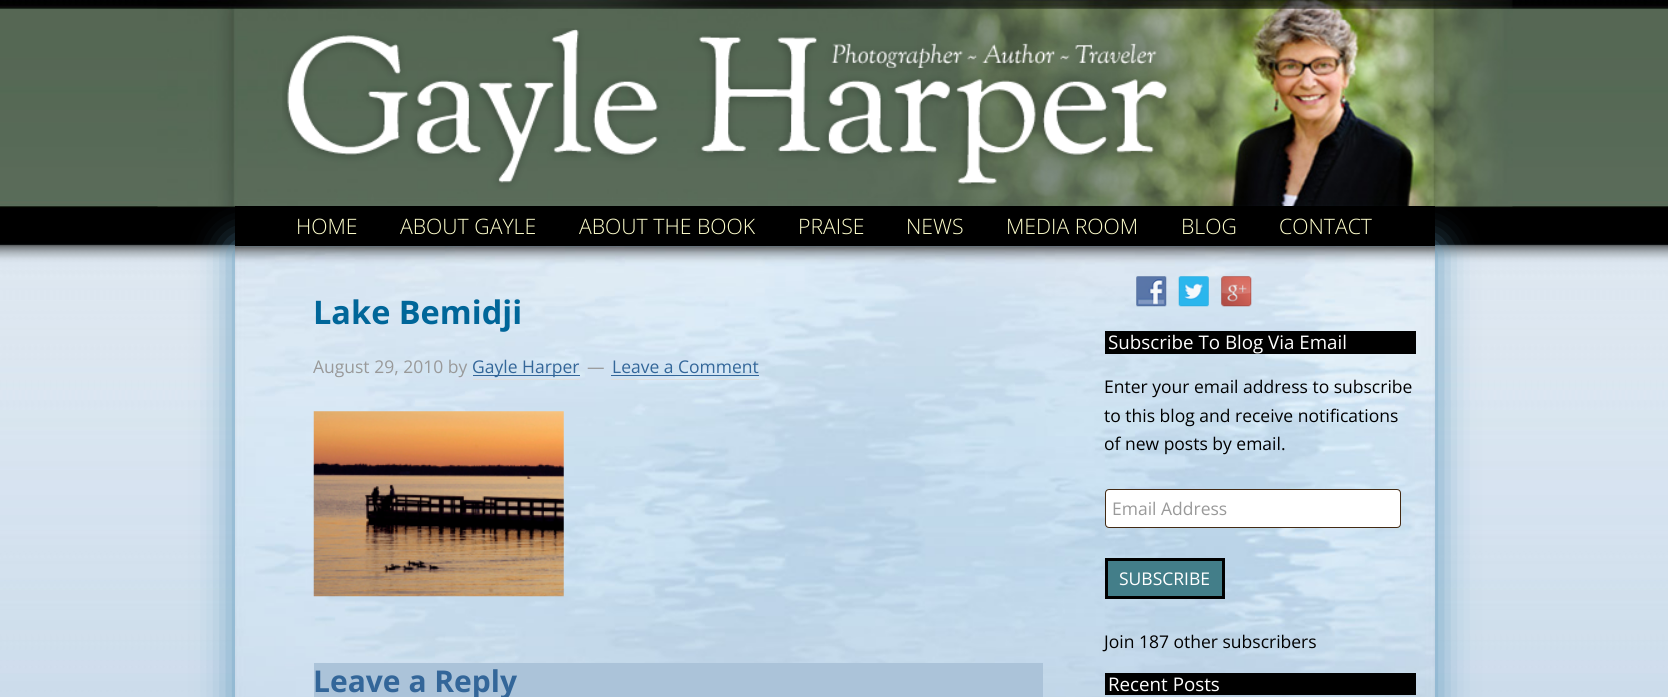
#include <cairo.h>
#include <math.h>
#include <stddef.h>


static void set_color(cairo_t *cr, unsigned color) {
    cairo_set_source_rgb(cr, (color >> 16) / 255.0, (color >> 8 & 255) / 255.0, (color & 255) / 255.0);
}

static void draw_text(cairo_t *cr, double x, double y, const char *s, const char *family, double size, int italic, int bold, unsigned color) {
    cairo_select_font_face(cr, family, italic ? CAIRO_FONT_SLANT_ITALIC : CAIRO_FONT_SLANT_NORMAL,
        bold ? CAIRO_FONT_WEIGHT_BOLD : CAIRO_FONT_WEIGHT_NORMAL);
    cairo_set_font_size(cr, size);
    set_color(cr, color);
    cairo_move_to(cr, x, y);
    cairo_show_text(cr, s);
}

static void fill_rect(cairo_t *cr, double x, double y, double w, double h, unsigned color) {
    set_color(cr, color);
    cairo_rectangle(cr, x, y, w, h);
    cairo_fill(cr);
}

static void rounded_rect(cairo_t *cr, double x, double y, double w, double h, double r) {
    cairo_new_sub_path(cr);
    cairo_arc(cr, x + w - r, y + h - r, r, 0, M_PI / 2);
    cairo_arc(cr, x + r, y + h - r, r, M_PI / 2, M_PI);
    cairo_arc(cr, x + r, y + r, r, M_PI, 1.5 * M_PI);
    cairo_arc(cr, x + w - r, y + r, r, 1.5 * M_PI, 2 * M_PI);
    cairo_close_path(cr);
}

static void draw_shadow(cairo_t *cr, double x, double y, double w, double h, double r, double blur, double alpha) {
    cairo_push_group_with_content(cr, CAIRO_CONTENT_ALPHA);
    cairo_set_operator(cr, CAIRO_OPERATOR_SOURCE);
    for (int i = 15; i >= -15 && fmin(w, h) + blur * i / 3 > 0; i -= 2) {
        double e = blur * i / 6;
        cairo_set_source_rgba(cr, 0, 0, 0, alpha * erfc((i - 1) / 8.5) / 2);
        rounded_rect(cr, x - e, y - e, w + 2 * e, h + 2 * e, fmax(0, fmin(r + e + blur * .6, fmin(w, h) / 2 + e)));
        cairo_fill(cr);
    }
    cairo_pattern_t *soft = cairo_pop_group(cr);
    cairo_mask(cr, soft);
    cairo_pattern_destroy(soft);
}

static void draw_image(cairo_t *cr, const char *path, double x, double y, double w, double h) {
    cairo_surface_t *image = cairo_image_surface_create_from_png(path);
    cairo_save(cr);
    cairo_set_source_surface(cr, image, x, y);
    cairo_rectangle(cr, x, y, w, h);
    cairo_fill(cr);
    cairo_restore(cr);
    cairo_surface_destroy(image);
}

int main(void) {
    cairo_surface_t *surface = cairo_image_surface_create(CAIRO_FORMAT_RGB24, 1668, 697);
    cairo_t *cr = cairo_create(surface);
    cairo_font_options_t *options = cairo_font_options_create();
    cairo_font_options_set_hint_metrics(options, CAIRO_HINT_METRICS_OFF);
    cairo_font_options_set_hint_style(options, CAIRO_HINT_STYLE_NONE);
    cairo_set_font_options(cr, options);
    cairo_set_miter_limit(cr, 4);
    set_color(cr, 0xFFFFFF);
    cairo_paint(cr);
    draw_image(cr, "assets/img1.png", 0, 0, 1668, 697);
    set_color(cr, 0x5C98BB);
    draw_shadow(cr, 235, 246, 1200, 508, 0, 19, 1);
    draw_image(cr, "assets/img2.png", 282, 28, 888, 162);
    fill_rect(cr, 235, 206, 1200, 40, 0x000000);
    draw_text(cr, 296, 234, "HOME", "Open Sans Light", 21.25, 0, 0, 0xFFFFCC);
    draw_text(cr, 400, 234, "ABOUT GAYLE", "Open Sans Light", 21.25, 0, 0, 0xFFFFCC);
    draw_text(cr, 579, 234, "ABOUT THE BOOK", "Open Sans Light", 21.25, 0, 0, 0xFFFFCC);
    draw_text(cr, 798, 234, "PRAISE", "Open Sans Light", 21.25, 0, 0, 0xFFFFCC);
    draw_text(cr, 906, 234, "NEWS", "Open Sans Light", 21.25, 0, 0, 0xFFFFCC);
    draw_text(cr, 1006, 234, "MEDIA ROOM", "Open Sans Light", 21.25, 0, 0, 0xFFFFCC);
    draw_text(cr, 1181, 234, "BLOG", "Open Sans Light", 21.25, 0, 0, 0xFFFFCC);
    draw_text(cr, 1279, 234, "CONTACT", "Open Sans Light", 21.25, 0, 0, 0xFFFFCC);
    draw_image(cr, "assets/img3.png", 235, 246, 1200, 451);
    draw_text(cr, 313, 324, "Lake Bemidji", "Open Sans", 32.5, 0, 1, 0x006699);
    draw_text(cr, 313, 373, "August 29, 2010 by", "Open Sans", 17.5, 0, 0, 0x999999);
    fill_rect(cr, 473, 375, 107, 1, 0x336699);
    draw_text(cr, 472, 373, "Gayle Harper", "Open Sans", 17.5, 0, 0, 0x336699);
    fill_rect(cr, 473, 379, 107, 1, 0xDDDDDD);
    draw_text(cr, 587, 373, "—", "Open Sans", 17.5, 0, 0, 0x999999);
    draw_text(cr, 612, 373, "Leave a Comment", "Open Sans", 17.5, 0, 0, 0x336699);
    fill_rect(cr, 611, 379, 148, 1, 0xDDDDDD);
    fill_rect(cr, 611, 375, 148, 1, 0x336699);
    draw_image(cr, "assets/img4.png", 313, 411, 251, 186);
    fill_rect(cr, 314, 663, 729, 34, 0xABC3D9);
    draw_text(cr, 313, 692, "Leave a Reply", "Open Sans", 30, 0, 1, 0x336699);
    draw_image(cr, "assets/img5.png", 1136, 276, 31, 31);
    draw_image(cr, "assets/img6.png", 1178, 276, 31, 31);
    draw_image(cr, "assets/img7.png", 1221, 276, 31, 31);
    fill_rect(cr, 1105, 331, 311, 23, 0x000000);
    draw_text(cr, 1108, 349, "Subscribe To Blog Via Email", "Open Sans", 18.75, 0, 0, 0xFFFFFF);
    draw_text(cr, 1104, 393, "Enter your email address to subscribe", "Open Sans", 17.5, 0, 0, 0x000000);
    draw_text(cr, 1104, 422, "to this blog and receive notifications", "Open Sans", 17.5, 0, 0, 0x000000);
    draw_text(cr, 1104, 450, "of new posts by email.", "Open Sans", 17.5, 0, 0, 0x000000);
    set_color(cr, 0xFFFFFF);
    rounded_rect(cr, 1105.5, 489.5, 295, 38, 3.5);
    cairo_fill_preserve(cr);
    set_color(cr, 0x432A13);
    cairo_set_line_width(cr, 1);
    cairo_stroke(cr);
    draw_text(cr, 1112, 515, "Email Address", "Open Sans", 17.5, 0, 0, 0x999999);
    set_color(cr, 0x437E89);
    cairo_rectangle(cr, 1106.5, 559.5, 117, 38);
    cairo_fill_preserve(cr);
    set_color(cr, 0x000000);
    cairo_set_line_width(cr, 3);
    cairo_stroke(cr);
    draw_text(cr, 1119, 585, "SUBSCRIBE", "Open Sans", 17.5, 0, 0, 0xFFFFFF);
    draw_text(cr, 1104, 648, "Join 187 other subscribers", "Open Sans", 17.5, 0, 0, 0x000000);
    fill_rect(cr, 1105, 673, 311, 22, 0x000000);
    draw_text(cr, 1108, 691, "Recent Posts", "Open Sans", 18.75, 0, 0, 0xFFFFFF);
    cairo_surface_write_to_png(surface, "output.png");
    cairo_font_options_destroy(options);
    cairo_destroy(cr);
    cairo_surface_destroy(surface);
    return 0;
}
